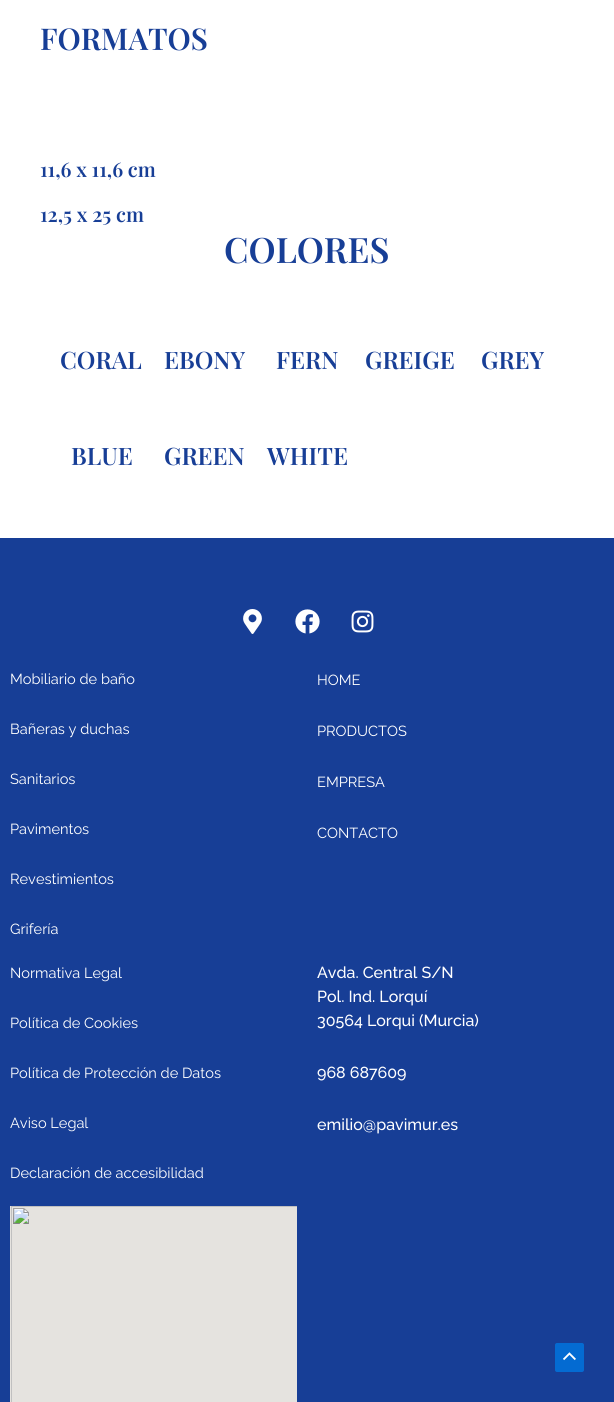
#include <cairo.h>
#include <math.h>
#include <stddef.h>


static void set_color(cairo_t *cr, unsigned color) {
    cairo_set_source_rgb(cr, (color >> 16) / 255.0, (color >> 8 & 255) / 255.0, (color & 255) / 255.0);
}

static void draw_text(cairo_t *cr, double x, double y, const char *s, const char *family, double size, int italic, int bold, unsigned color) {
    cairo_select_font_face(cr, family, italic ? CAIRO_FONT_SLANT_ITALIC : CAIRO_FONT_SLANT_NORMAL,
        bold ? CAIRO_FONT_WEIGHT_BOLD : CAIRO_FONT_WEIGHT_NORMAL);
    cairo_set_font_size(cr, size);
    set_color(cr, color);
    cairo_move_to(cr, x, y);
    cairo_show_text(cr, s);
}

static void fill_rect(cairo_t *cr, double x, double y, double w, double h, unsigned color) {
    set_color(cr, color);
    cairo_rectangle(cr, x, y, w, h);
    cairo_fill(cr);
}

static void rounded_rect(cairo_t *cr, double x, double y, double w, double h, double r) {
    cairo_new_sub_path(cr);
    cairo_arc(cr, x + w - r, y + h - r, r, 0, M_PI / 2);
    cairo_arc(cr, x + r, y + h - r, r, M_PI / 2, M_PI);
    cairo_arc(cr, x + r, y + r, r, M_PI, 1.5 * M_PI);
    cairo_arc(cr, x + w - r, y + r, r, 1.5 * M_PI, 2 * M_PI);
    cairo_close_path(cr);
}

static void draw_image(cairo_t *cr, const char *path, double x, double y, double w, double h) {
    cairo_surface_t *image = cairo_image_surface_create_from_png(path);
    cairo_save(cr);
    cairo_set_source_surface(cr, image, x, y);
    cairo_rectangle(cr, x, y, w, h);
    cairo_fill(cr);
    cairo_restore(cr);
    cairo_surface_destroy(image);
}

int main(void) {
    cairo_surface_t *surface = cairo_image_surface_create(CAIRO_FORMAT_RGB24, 614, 1402);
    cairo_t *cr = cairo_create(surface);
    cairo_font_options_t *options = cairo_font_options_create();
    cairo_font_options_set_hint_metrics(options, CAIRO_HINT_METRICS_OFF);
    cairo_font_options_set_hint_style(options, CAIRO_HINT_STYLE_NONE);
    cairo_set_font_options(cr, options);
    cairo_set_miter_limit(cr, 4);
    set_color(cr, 0xFFFFFF);
    cairo_paint(cr);
    draw_text(cr, 40, 50, "FORMATOS", "Playfair Display SemiBold", 30, 0, 0, 0x173E96);
    draw_text(cr, 40, 177, "11,6 x 11,6 cm", "Playfair Display SemiBold", 20, 0, 0, 0x173E96);
    draw_text(cr, 40, 222, "12,5 x 25 cm", "Playfair Display SemiBold", 20, 0, 0, 0x173E96);
    draw_text(cr, 224, 263, "COLORES", "Playfair Display SemiBold", 35, 0, 0, 0x173E96);
    draw_text(cr, 60, 369, "CORAL", "Playfair Display SemiBold", 24, 0, 0, 0x173E96);
    draw_text(cr, 164, 369, "EBONY", "Playfair Display SemiBold", 24, 0, 0, 0x173E96);
    draw_text(cr, 276, 369, "FERN", "Playfair Display SemiBold", 24, 0, 0, 0x173E96);
    draw_text(cr, 365, 369, "GREIGE", "Playfair Display SemiBold", 24, 0, 0, 0x173E96);
    draw_text(cr, 481, 369, "GREY", "Playfair Display SemiBold", 24, 0, 0, 0x173E96);
    draw_text(cr, 71, 465, "BLUE", "Playfair Display SemiBold", 24, 0, 0, 0x173E96);
    draw_text(cr, 164, 465, "GREEN", "Playfair Display SemiBold", 24, 0, 0, 0x173E96);
    draw_text(cr, 267, 465, "WHITE", "Playfair Display SemiBold", 24, 0, 0, 0x173E96);
    fill_rect(cr, 0, 538, 614, 864, 0x173E96);
    draw_image(cr, "assets/img1.png", 243, 609, 19, 25);
    draw_image(cr, "assets/img2.png", 295, 609, 25, 25);
    draw_image(cr, "assets/img3.png", 351, 610, 23, 23);
    draw_text(cr, 10, 684, "Mobiliario de baño", "Raleway", 14.6, 0, 0, 0xFFFFFF);
    draw_text(cr, 10, 734, "Bañeras y duchas", "Raleway", 14.6, 0, 0, 0xFFFFFF);
    draw_text(cr, 10, 784, "Sanitarios", "Raleway", 14.6, 0, 0, 0xFFFFFF);
    draw_text(cr, 10, 834, "Pavimentos", "Raleway", 14.6, 0, 0, 0xFFFFFF);
    draw_text(cr, 10, 884, "Revestimientos", "Raleway", 14.6, 0, 0, 0xFFFFFF);
    draw_text(cr, 10, 934, "Grifería", "Raleway", 14.6, 0, 0, 0xFFFFFF);
    draw_text(cr, 317, 685, "HOME", "Raleway", 14.6, 0, 0, 0xFFFFFF);
    draw_text(cr, 317, 736, "PRODUCTOS", "Raleway", 14.6, 0, 0, 0xFFFFFF);
    draw_text(cr, 317, 787, "EMPRESA", "Raleway", 14.6, 0, 0, 0xFFFFFF);
    draw_text(cr, 317, 838, "CONTACTO", "Raleway", 14.6, 0, 0, 0xFFFFFF);
    draw_text(cr, 10, 978, "Normativa Legal", "Raleway", 14.6, 0, 0, 0xFFFFFF);
    draw_text(cr, 10, 1028, "Política de Cookies", "Raleway", 14.6, 0, 0, 0xFFFFFF);
    draw_text(cr, 10, 1078, "Política de Protección de Datos", "Raleway", 14.6, 0, 0, 0xFFFFFF);
    draw_text(cr, 10, 1128, "Aviso Legal", "Raleway", 14.6, 0, 0, 0xFFFFFF);
    draw_text(cr, 10, 1178, "Declaración de accesibilidad", "Raleway", 14.6, 0, 0, 0xFFFFFF);
    draw_text(cr, 317, 978, "Avda. Central S/N", "Raleway Medium", 16, 0, 0, 0xFFFFFF);
    draw_text(cr, 317, 1002, "Pol. Ind. Lorquí", "Raleway Medium", 16, 0, 0, 0xFFFFFF);
    draw_text(cr, 317, 1026, "30564 Lorqui (Murcia)", "Raleway Medium", 16, 0, 0, 0xFFFFFF);
    draw_text(cr, 317, 1078, "968 687609", "Raleway Medium", 16, 0, 0, 0xFFFFFF);
    draw_text(cr, 317, 1130, "emilio@pavimur.es", "Raleway Medium", 16, 0, 0, 0xFFFFFF);
    draw_image(cr, "assets/img4.png", 10, 1206, 287, 196);
    set_color(cr, 0x046BD2);
    rounded_rect(cr, 555, 1343, 29, 29, 2);
    cairo_fill(cr);
    draw_image(cr, "assets/img5.png", 563, 1352, 13, 9);
    cairo_surface_write_to_png(surface, "output.png");
    cairo_font_options_destroy(options);
    cairo_destroy(cr);
    cairo_surface_destroy(surface);
    return 0;
}
